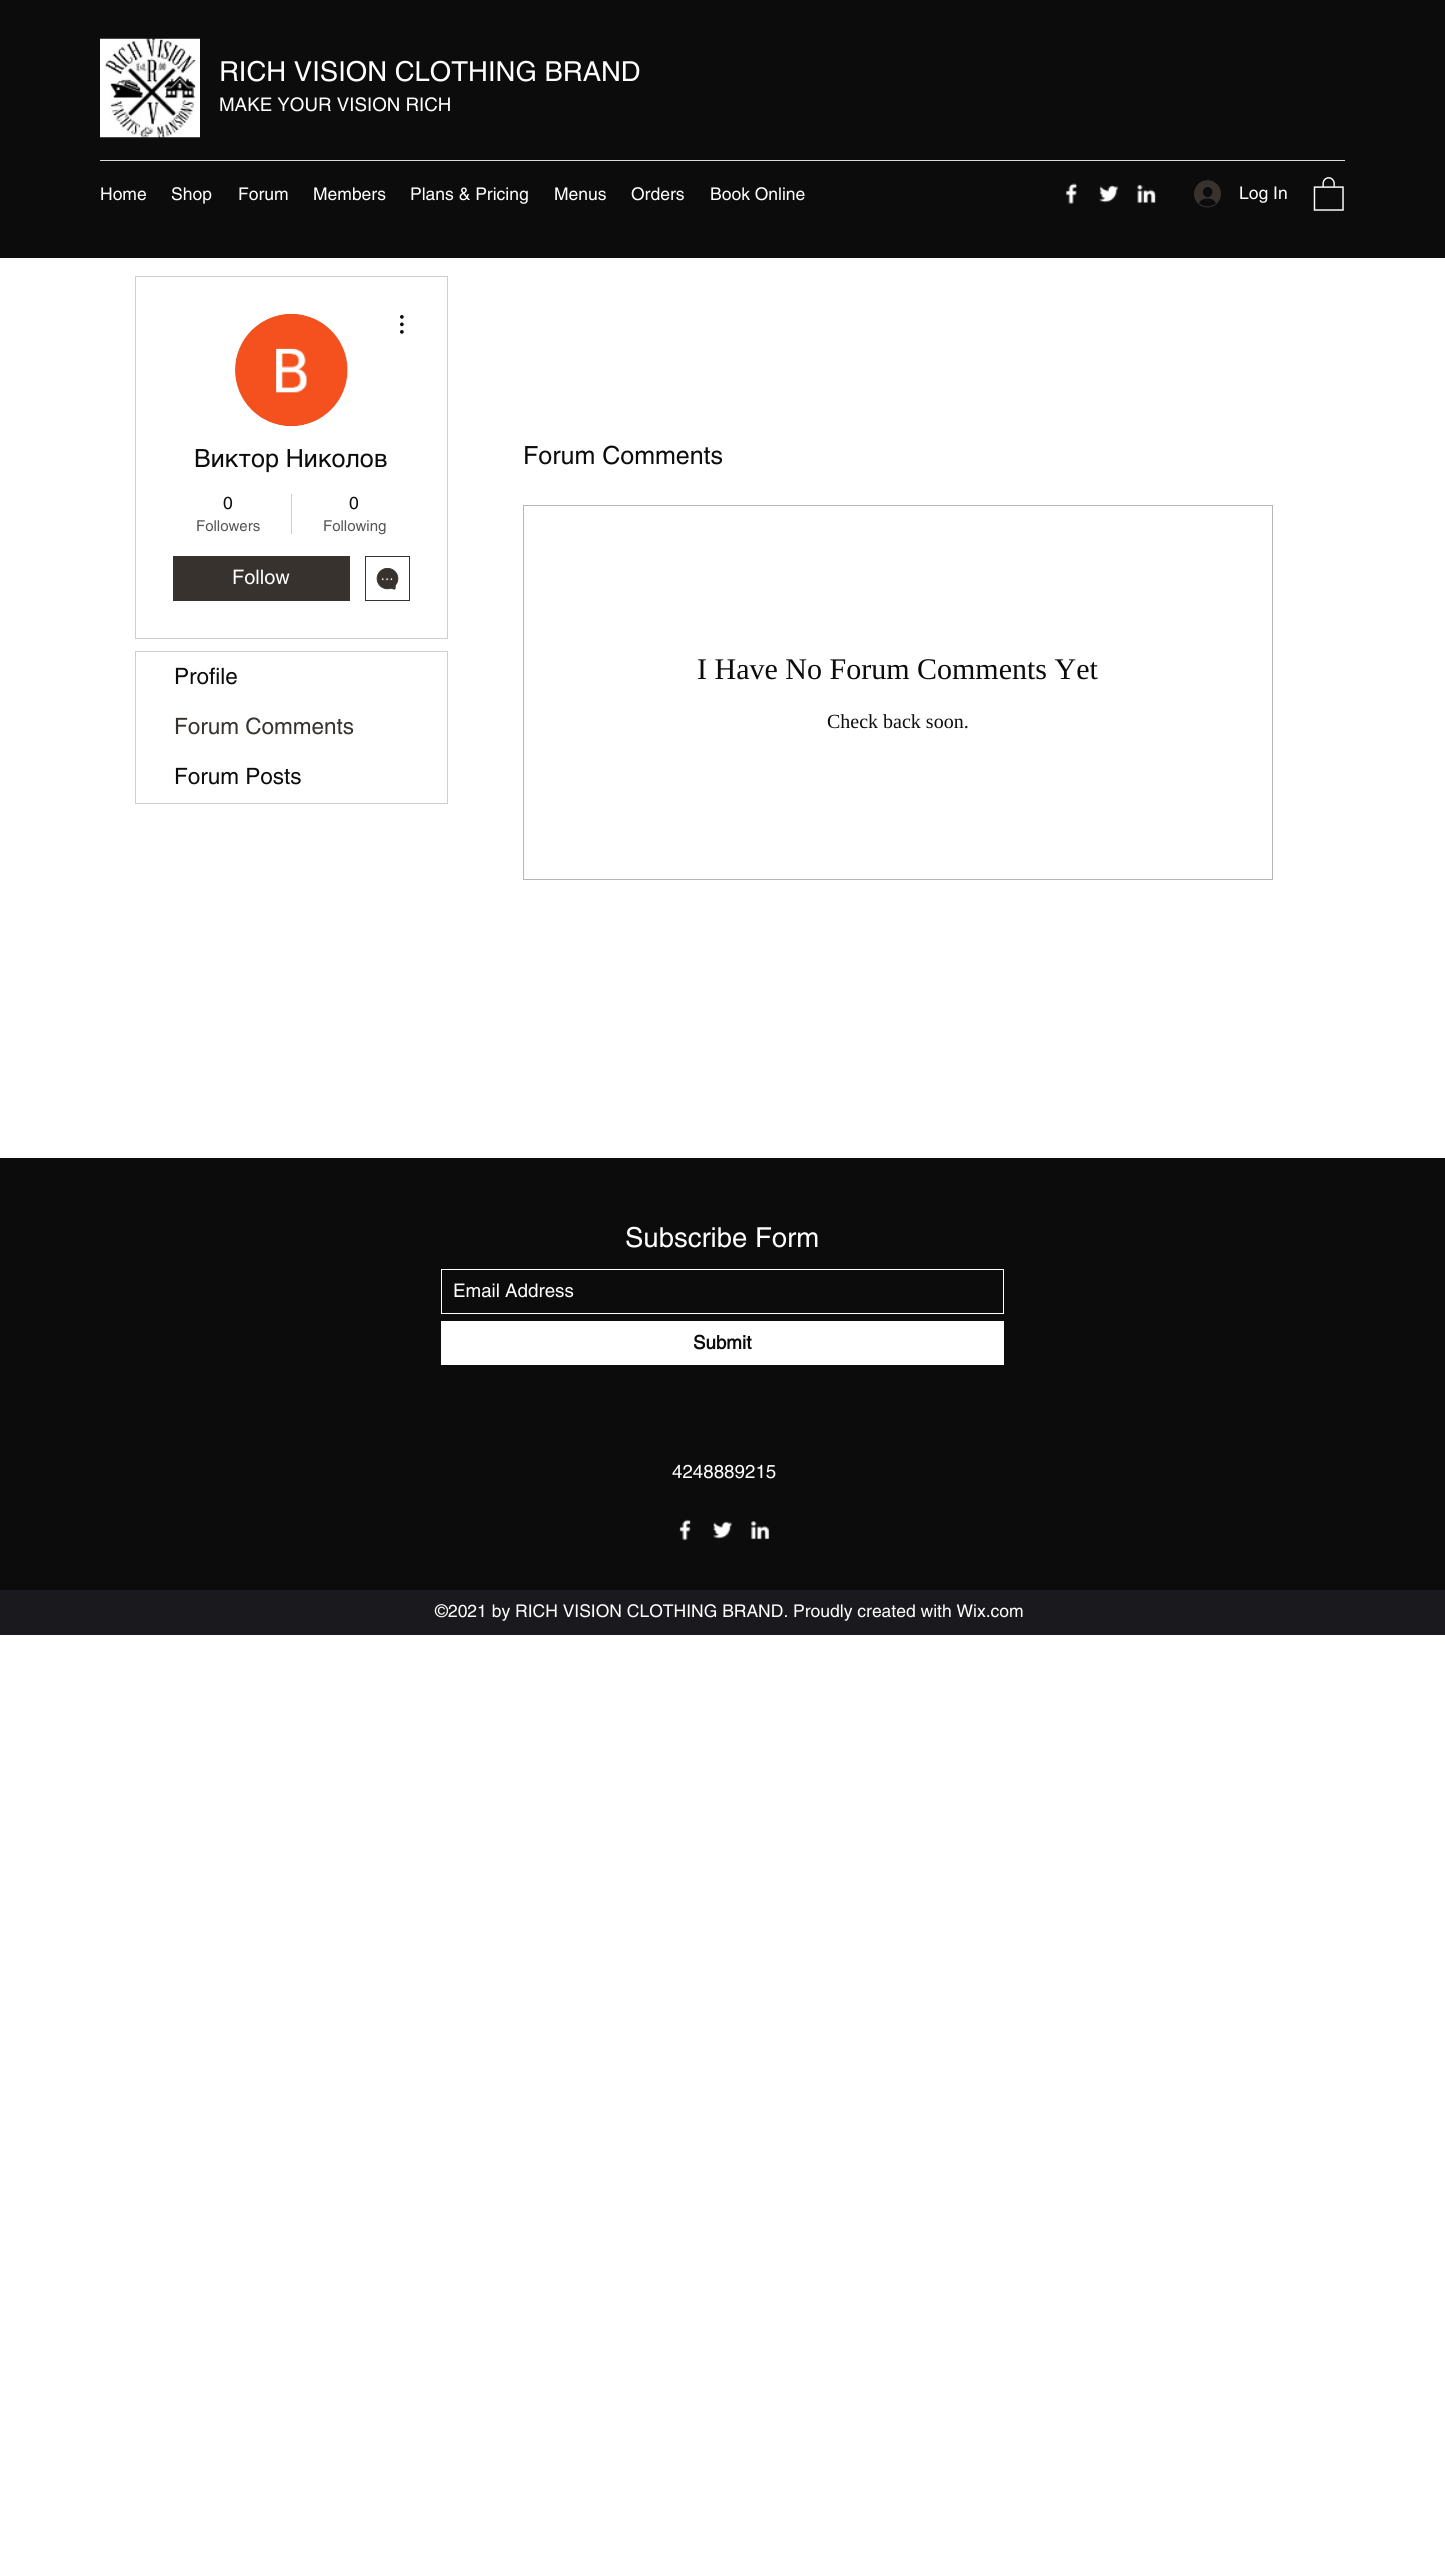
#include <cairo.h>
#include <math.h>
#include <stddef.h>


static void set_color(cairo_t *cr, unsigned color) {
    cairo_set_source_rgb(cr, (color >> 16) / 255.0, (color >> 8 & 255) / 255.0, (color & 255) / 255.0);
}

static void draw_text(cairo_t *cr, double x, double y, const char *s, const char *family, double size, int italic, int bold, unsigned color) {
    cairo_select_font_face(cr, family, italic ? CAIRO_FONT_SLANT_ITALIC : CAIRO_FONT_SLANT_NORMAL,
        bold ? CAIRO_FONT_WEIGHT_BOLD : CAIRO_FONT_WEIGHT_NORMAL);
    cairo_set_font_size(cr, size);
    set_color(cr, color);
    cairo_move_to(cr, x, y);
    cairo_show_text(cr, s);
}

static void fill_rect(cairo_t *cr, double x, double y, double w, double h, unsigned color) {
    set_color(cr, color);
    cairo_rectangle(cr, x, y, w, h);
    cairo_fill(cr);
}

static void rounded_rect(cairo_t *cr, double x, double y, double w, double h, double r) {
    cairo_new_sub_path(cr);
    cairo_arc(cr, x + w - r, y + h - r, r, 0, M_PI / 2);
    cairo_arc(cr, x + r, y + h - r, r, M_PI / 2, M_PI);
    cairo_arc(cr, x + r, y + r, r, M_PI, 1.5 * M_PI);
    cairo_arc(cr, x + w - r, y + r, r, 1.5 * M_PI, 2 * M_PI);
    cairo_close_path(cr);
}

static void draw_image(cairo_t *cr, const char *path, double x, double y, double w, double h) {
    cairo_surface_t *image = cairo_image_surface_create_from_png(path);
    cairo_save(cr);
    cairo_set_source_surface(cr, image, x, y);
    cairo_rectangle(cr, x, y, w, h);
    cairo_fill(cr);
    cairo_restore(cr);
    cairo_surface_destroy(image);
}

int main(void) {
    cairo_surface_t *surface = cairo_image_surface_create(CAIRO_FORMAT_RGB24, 1445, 2549);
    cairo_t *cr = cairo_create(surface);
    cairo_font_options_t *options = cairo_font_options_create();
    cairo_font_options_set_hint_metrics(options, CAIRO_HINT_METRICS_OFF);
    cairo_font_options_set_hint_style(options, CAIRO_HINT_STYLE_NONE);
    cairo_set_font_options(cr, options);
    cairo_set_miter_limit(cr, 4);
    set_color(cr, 0xFFFFFF);
    cairo_paint(cr);
    fill_rect(cr, 0, 0, 1445, 258, 0x0C0C0D);
    draw_image(cr, "assets/img1.png", 100, 38, 100, 100);
    draw_text(cr, 219, 81, "RICH VISION CLOTHING BRAND", "helvetica", 27.5, 0, 0, 0xFFFFFF);
    draw_text(cr, 219, 111, "MAKE YOUR VISION RICH", "helvetica", 18.75, 0, 0, 0xFFFFFF);
    fill_rect(cr, 100, 160, 1245, 1, 0xDBDBDB);
    draw_text(cr, 100, 200, "Home", "helvetica", 17.5, 0, 0, 0xFFFFFF);
    draw_text(cr, 171, 200, "Shop", "helvetica", 17.5, 0, 0, 0xFFFFFF);
    draw_text(cr, 238, 200, "Forum", "helvetica", 17.5, 0, 0, 0xFFFFFF);
    draw_text(cr, 313, 200, "Members", "helvetica", 17.5, 0, 0, 0xFFFFFF);
    draw_text(cr, 410, 200, "Plans & Pricing", "helvetica", 17.5, 0, 0, 0xFFFFFF);
    draw_text(cr, 554, 200, "Menus", "helvetica", 17.5, 0, 0, 0xFFFFFF);
    draw_text(cr, 631, 200, "Orders", "helvetica", 17.5, 0, 0, 0xFFFFFF);
    draw_text(cr, 710, 200, "Book Online", "helvetica", 17.5, 0, 0, 0xFFFFFF);
    draw_image(cr, "assets/img2.png", 1066, 183, 11, 21);
    draw_image(cr, "assets/img3.png", 1099, 185, 20, 18);
    draw_image(cr, "assets/img4.png", 1137, 184, 19, 20);
    draw_image(cr, "assets/img5.png", 1194, 180, 27, 28);
    draw_text(cr, 1239, 199, "Log In", "helvetica", 17.5, 0, 0, 0xFFFFFF);
    draw_image(cr, "assets/img6.png", 1313, 177, 31, 34);
    cairo_rectangle(cr, 135.5, 276.5, 312, 362);
    set_color(cr, 0xCECECF);
    cairo_set_line_width(cr, 1);
    cairo_stroke(cr);
    set_color(cr, 0xD8D8D8);
    rounded_rect(cr, 235, 314, 113, 112, 56);
    cairo_fill(cr);
    draw_image(cr, "assets/img7.png", 235, 314, 113, 112);
    draw_image(cr, "assets/img8.png", 400, 315, 4, 19);
    draw_text(cr, 194, 467, "Виктор Николов", "helvetica", 25, 0, 0, 0x0C0C0D);
    draw_text(cr, 223, 509, "0", "helvetica", 17.5, 0, 0, 0x0C0C0D);
    draw_text(cr, 196, 531, "Followers", "helvetica", 15, 0, 0, 0x555556);
    fill_rect(cr, 291, 494, 1, 40, 0xCECECF);
    draw_text(cr, 349, 509, "0", "helvetica", 17.5, 0, 0, 0x0C0C0D);
    draw_text(cr, 323, 531, "Following", "helvetica", 15, 0, 0, 0x555556);
    fill_rect(cr, 173, 556, 177, 45, 0x37322E);
    draw_text(cr, 232, 584, "Follow", "helvetica", 20, 0, 0, 0xFFFFFF);
    cairo_rectangle(cr, 365.5, 556.5, 44, 44);
    set_color(cr, 0x37322E);
    cairo_stroke(cr);
    draw_image(cr, "assets/img9.png", 376, 568, 23, 22);
    cairo_rectangle(cr, 135.5, 651.5, 312, 152);
    set_color(cr, 0xCECECF);
    cairo_stroke(cr);
    draw_text(cr, 174, 684, "Profile", "helvetica", 22.5, 0, 0, 0x0C0C0D);
    draw_text(cr, 174, 734, "Forum Comments", "helvetica", 22.5, 0, 0, 0x37322E);
    draw_text(cr, 174, 784, "Forum Posts", "helvetica", 22.5, 0, 0, 0x0C0C0D);
    draw_text(cr, 523, 464, "Forum Comments", "helvetica", 25, 0, 0, 0x0C0C0D);
    cairo_rectangle(cr, 523.5, 505.5, 749, 374);
    set_color(cr, 0xB6B6B6);
    cairo_stroke(cr);
    draw_text(cr, 697, 679, "I Have No Forum Comments Yet", "Liberation Serif", 30, 0, 0, 0x0C0C0D);
    draw_text(cr, 827, 728, "Check back soon.", "Liberation Serif", 20, 0, 0, 0x0C0C0D);
    fill_rect(cr, 0, 1158, 1445, 432, 0x0C0C0D);
    draw_text(cr, 625, 1247, "Subscribe Form", "helvetica", 27.5, 0, 0, 0xFFFFFF);
    cairo_rectangle(cr, 441.5, 1269.5, 562, 44);
    cairo_stroke(cr);
    draw_text(cr, 453, 1297, "Email Address", "helvetica", 18.75, 0, 0, 0xFFFFFF);
    fill_rect(cr, 441, 1321, 563, 44, 0xFFFFFF);
    draw_text(cr, 693, 1349, "Submit", "helvetica", 18.75, 0, 1, 0x0C0C0D);
    draw_text(cr, 672, 1478, "4248889215", "helvetica", 18.75, 0, 0, 0xFFFFFF);
    draw_image(cr, "assets/img10.png", 679, 1519, 12, 22);
    draw_image(cr, "assets/img11.png", 712, 1521, 21, 18);
    draw_image(cr, "assets/img12.png", 751, 1521, 19, 19);
    fill_rect(cr, 0, 1590, 1445, 45, 0x19191E);
    draw_text(cr, 435, 1617, "©2021 by RICH VISION CLOTHING BRAND. Proudly created with Wix.com", "helvetica", 17.5, 0, 0, 0xFFFFFF);
    cairo_surface_write_to_png(surface, "output.png");
    cairo_font_options_destroy(options);
    cairo_destroy(cr);
    cairo_surface_destroy(surface);
    return 0;
}
